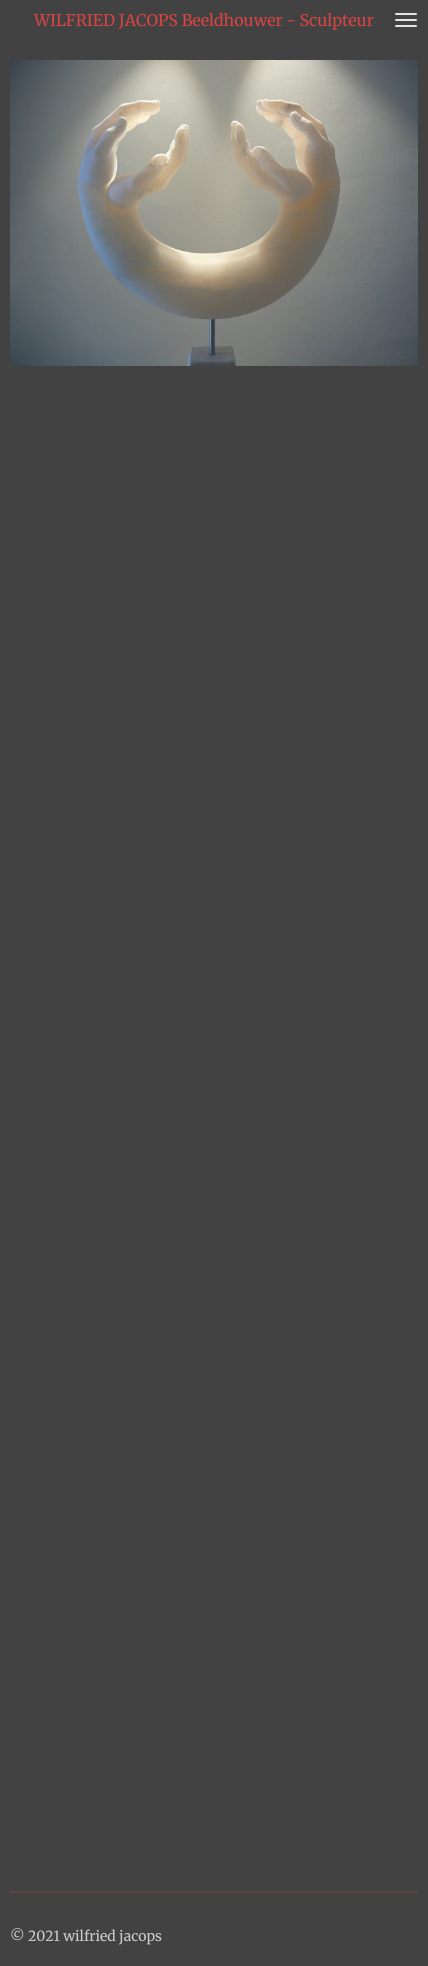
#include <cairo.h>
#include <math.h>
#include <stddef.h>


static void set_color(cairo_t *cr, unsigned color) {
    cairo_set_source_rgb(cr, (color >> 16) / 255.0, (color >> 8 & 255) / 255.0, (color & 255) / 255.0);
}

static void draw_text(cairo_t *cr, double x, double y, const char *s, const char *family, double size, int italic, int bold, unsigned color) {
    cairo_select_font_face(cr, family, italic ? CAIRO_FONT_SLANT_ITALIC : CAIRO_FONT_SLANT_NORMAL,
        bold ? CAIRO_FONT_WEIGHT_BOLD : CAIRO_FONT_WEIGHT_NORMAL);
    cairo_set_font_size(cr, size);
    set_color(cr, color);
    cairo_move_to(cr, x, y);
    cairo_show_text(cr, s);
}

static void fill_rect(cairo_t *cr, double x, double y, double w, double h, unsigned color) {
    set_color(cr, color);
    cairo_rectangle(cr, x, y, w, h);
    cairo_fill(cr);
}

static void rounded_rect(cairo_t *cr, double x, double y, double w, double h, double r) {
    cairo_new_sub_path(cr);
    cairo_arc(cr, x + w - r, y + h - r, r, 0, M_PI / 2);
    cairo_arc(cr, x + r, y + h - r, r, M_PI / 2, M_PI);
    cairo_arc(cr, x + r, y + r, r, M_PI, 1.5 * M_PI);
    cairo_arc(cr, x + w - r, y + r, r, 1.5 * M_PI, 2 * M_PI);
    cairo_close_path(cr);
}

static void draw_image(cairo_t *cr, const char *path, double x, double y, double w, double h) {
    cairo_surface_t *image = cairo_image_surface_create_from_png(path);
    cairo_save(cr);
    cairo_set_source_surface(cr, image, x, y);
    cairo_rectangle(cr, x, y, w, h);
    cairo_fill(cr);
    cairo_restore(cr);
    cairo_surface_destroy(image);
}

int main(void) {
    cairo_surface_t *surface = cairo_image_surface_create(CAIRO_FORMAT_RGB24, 428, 1966);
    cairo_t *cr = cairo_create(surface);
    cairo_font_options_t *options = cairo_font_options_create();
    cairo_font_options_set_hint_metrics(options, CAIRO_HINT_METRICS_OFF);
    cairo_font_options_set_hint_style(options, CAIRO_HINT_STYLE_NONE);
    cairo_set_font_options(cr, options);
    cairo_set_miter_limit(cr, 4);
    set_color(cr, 0x424242);
    cairo_paint(cr);
    draw_text(cr, 34, 26, "WILFRIED JACOPS Beeldhouwer - Sculpteur", "Merriweather", 16, 0, 0, 0xDA4444);
    set_color(cr, 0xE4E4E4);
    rounded_rect(cr, 395, 19, 22, 2, 1);
    cairo_fill(cr);
    rounded_rect(cr, 395, 13, 22, 2, 1);
    cairo_fill(cr);
    rounded_rect(cr, 395, 25, 22, 2, 1);
    cairo_fill(cr);
    draw_image(cr, "assets/img1.png", 10, 60, 408, 306);
    fill_rect(cr, 10, 1891, 408, 2, 0x5B4445);
    draw_text(cr, 10, 1941, "© 2021 wilfried jacops", "Merriweather", 14, 0, 0, 0xCECECE);
    cairo_surface_write_to_png(surface, "output.png");
    cairo_font_options_destroy(options);
    cairo_destroy(cr);
    cairo_surface_destroy(surface);
    return 0;
}
